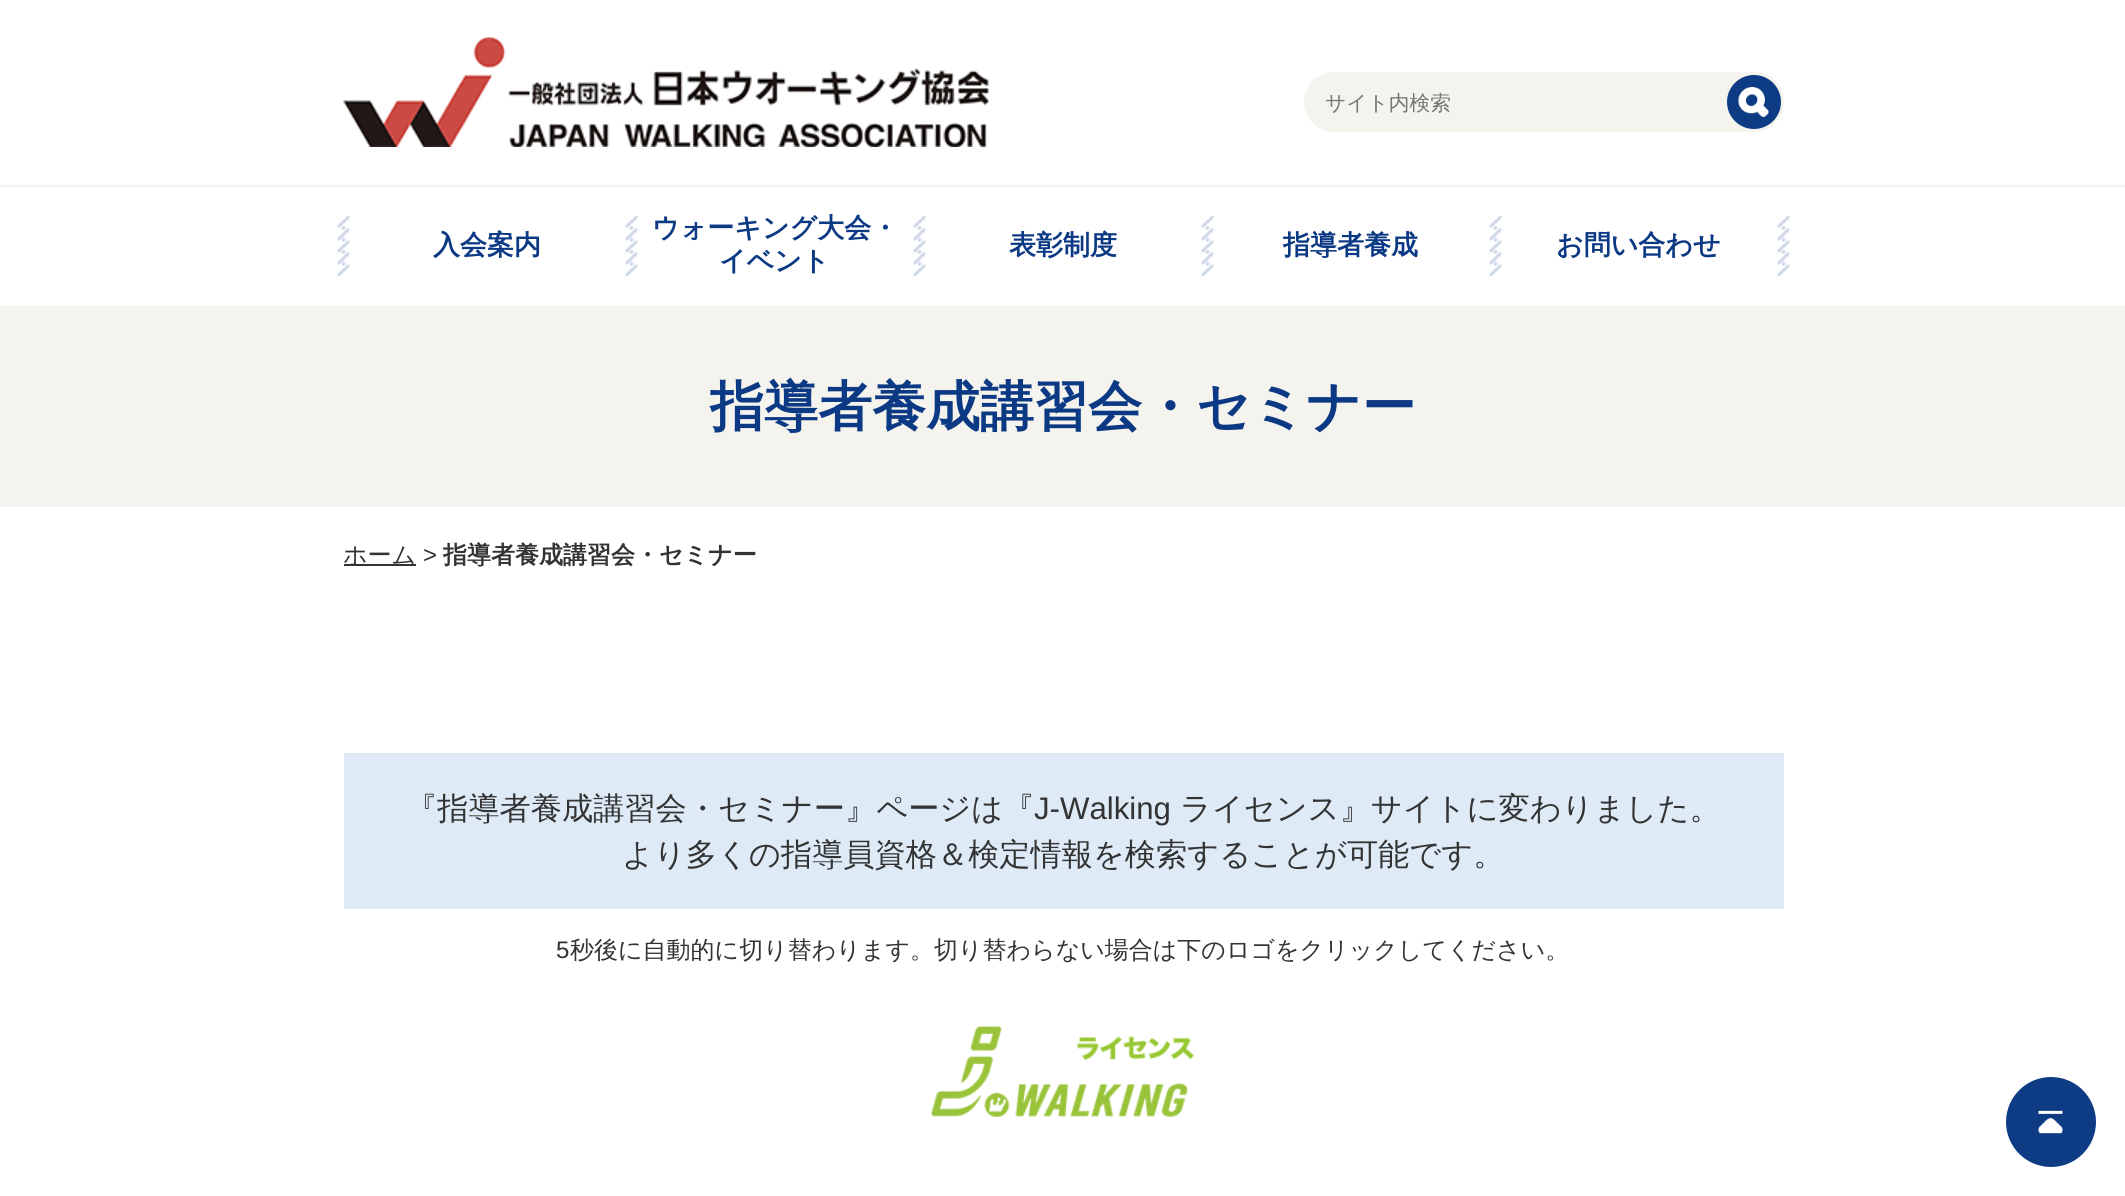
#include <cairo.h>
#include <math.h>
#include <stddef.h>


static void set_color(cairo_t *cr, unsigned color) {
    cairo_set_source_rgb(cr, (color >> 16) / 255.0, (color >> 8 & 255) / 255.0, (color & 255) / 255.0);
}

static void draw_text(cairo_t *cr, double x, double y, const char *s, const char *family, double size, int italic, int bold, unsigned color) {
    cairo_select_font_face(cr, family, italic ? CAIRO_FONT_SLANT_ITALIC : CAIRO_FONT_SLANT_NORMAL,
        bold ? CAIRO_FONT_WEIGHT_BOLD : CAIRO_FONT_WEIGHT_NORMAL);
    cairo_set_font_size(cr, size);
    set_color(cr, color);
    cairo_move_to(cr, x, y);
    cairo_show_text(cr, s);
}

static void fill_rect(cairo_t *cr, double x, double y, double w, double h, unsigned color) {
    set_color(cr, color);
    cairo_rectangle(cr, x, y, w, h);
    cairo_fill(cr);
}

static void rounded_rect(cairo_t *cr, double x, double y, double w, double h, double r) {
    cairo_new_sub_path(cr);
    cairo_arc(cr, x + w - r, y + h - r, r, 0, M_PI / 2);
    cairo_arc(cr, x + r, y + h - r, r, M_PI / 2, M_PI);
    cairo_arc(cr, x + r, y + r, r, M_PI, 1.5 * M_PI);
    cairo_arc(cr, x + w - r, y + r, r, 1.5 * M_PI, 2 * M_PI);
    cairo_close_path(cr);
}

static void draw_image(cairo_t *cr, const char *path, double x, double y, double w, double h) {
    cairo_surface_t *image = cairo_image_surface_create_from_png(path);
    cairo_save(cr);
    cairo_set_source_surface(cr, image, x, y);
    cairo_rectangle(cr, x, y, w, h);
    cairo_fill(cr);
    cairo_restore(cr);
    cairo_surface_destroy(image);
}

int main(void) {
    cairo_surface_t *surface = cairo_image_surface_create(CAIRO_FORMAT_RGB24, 2125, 1196);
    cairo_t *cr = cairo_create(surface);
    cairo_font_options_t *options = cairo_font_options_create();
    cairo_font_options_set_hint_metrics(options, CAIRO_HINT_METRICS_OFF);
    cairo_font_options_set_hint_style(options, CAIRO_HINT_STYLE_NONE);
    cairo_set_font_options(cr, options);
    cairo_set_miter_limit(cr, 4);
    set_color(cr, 0xFFFFFF);
    cairo_paint(cr);
    draw_image(cr, "assets/img1.png", 343, 37, 646, 110);
    fill_rect(cr, 0, 185, 2125, 2, 0xF4F3EE);
    rounded_rect(cr, 1304, 72, 480, 60, 30);
    cairo_fill(cr);
    draw_text(cr, 1325, 110, "サイト内検索", "WenQuanYi Zen Hei Medium", 20.75, 0, 0, 0x757575);
    set_color(cr, 0x0D3B84);
    cairo_new_path(cr);
    cairo_arc(cr, 1754, 102, 27, 0, 2 * M_PI);
    cairo_fill(cr);
    draw_image(cr, "assets/img2.png", 1738, 87, 31, 30);
    draw_image(cr, "assets/img3.png", 337, 216, 13, 60);
    draw_text(cr, 433, 254, "入会案内", "WenQuanYi Zen Hei", 27, 0, 1, 0x0C3984);
    draw_image(cr, "assets/img4.png", 625, 216, 13, 60);
    draw_text(cr, 652, 237, "ウォーキング大会・", "WenQuanYi Zen Hei", 27, 0, 1, 0x0C3984);
    draw_text(cr, 719, 270, "イベント", "WenQuanYi Zen Hei", 27, 0, 1, 0x0C3984);
    draw_image(cr, "assets/img3.png", 913, 216, 13, 60);
    draw_text(cr, 1009, 254, "表彰制度", "WenQuanYi Zen Hei", 27, 0, 1, 0x0C3984);
    draw_image(cr, "assets/img4.png", 1201, 216, 13, 60);
    draw_text(cr, 1283, 254, "指導者養成", "WenQuanYi Zen Hei", 27, 0, 1, 0x0C3984);
    draw_image(cr, "assets/img4.png", 1489, 216, 13, 60);
    draw_text(cr, 1556, 254, "お問い合わせ", "WenQuanYi Zen Hei", 27, 0, 1, 0x0C3984);
    draw_image(cr, "assets/img3.png", 1777, 216, 13, 60);
    fill_rect(cr, 0, 306, 2125, 201, 0xF4F3EE);
    draw_text(cr, 710, 425, "指導者養成講習会・セミナー", "WenQuanYi Zen Hei", 54, 0, 1, 0x0C3984);
    fill_rect(cr, 344, 564, 72, 2, 0x333333);
    draw_text(cr, 343, 563, "ホーム", "WenQuanYi Zen Hei Medium", 24, 0, 0, 0x333333);
    draw_text(cr, 423, 563, ">", "Liberation Sans", 24, 0, 0, 0x333333);
    draw_text(cr, 443, 563, "指導者養成講習会・セミナー", "WenQuanYi Zen Hei", 24, 0, 1, 0x333333);
    fill_rect(cr, 344, 753, 1440, 156, 0xDEEBF7);
    draw_text(cr, 406, 819, "『指導者養成講習会・セミナー』ページは『", "WenQuanYi Zen Hei Medium", 31.2, 0, 0, 0x333333);
    draw_text(cr, 1034, 819, "J-Walking", "Liberation Sans", 31.2, 0, 0, 0x333333);
    draw_text(cr, 1180, 819, "ライセンス』サイトに変わりました。", "WenQuanYi Zen Hei Medium", 31.2, 0, 0, 0x333333);
    draw_text(cr, 622, 865, "より多くの指導員資格＆検定情報を検索することが可能です。", "WenQuanYi Zen Hei Medium", 31.2, 0, 0, 0x333333);
    draw_text(cr, 556, 958, "5", "Liberation Sans", 24, 0, 0, 0x333333);
    draw_text(cr, 570, 958, "秒後に自動的に切り替わります。切り替わらない場合は下のロゴをクリックしてください。", "WenQuanYi Zen Hei Medium", 24, 0, 0, 0x333333);
    draw_image(cr, "assets/img5.png", 931, 1026, 264, 91);
    set_color(cr, 0x0D3B84);
    cairo_arc(cr, 2051, 1122, 45, 0, 2 * M_PI);
    cairo_fill(cr);
    draw_image(cr, "assets/img6.png", 2038, 1110, 25, 24);
    cairo_surface_write_to_png(surface, "output.png");
    cairo_font_options_destroy(options);
    cairo_destroy(cr);
    cairo_surface_destroy(surface);
    return 0;
}
